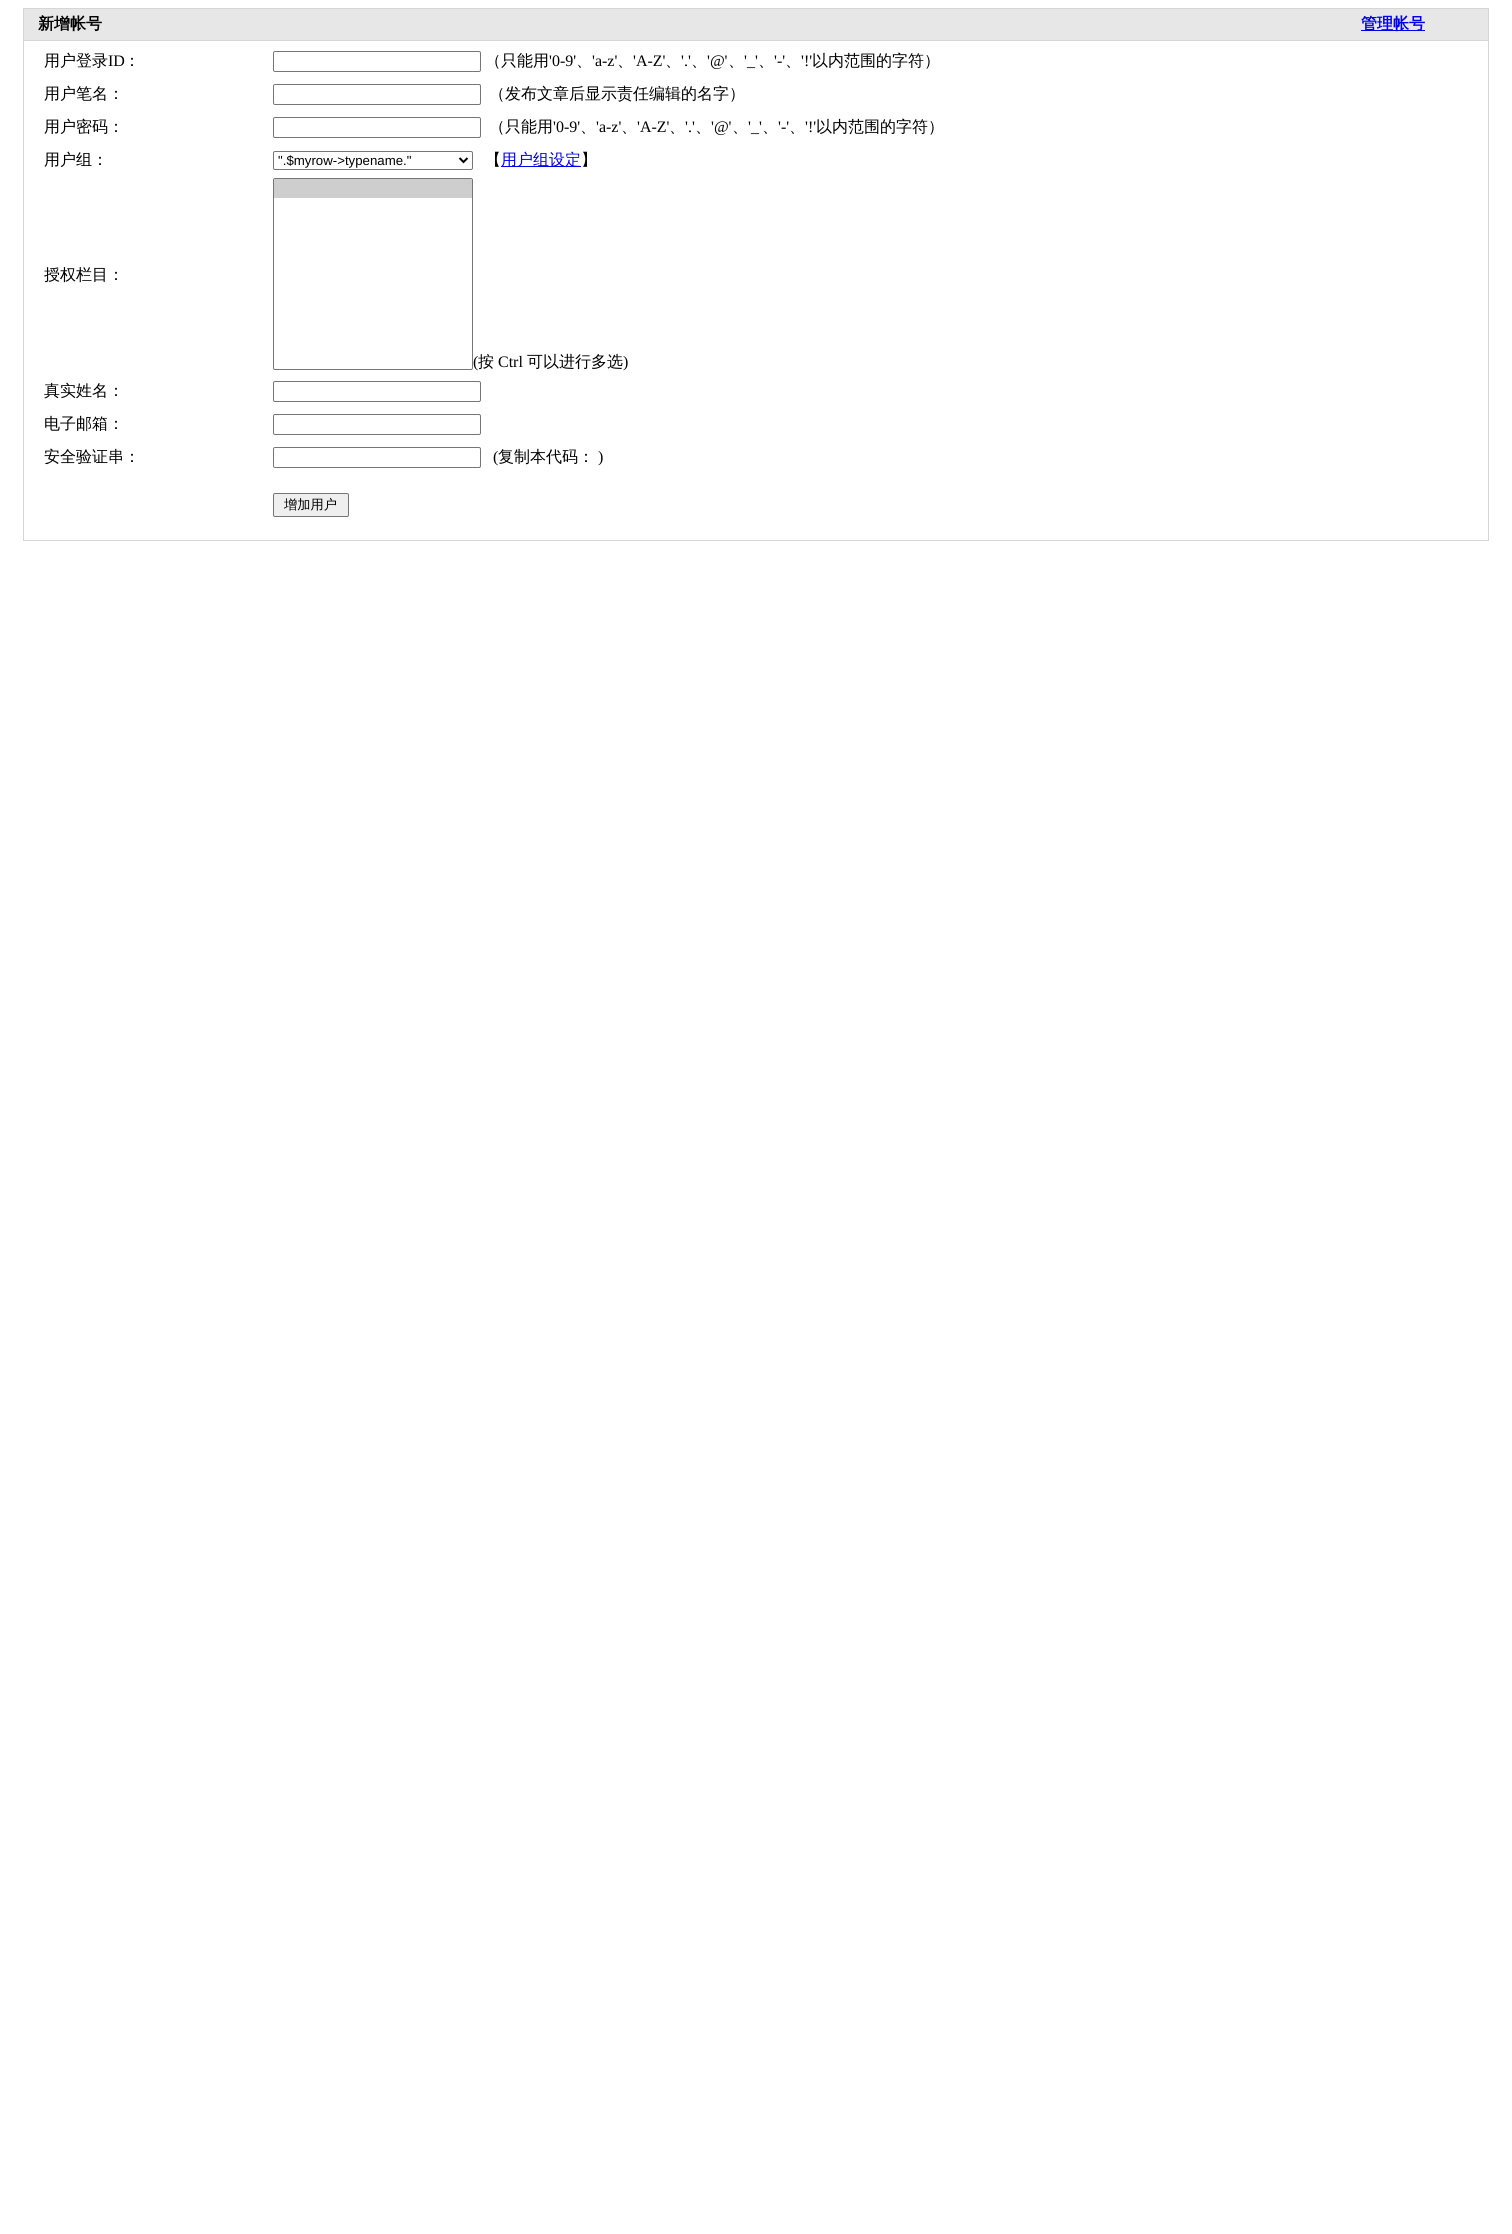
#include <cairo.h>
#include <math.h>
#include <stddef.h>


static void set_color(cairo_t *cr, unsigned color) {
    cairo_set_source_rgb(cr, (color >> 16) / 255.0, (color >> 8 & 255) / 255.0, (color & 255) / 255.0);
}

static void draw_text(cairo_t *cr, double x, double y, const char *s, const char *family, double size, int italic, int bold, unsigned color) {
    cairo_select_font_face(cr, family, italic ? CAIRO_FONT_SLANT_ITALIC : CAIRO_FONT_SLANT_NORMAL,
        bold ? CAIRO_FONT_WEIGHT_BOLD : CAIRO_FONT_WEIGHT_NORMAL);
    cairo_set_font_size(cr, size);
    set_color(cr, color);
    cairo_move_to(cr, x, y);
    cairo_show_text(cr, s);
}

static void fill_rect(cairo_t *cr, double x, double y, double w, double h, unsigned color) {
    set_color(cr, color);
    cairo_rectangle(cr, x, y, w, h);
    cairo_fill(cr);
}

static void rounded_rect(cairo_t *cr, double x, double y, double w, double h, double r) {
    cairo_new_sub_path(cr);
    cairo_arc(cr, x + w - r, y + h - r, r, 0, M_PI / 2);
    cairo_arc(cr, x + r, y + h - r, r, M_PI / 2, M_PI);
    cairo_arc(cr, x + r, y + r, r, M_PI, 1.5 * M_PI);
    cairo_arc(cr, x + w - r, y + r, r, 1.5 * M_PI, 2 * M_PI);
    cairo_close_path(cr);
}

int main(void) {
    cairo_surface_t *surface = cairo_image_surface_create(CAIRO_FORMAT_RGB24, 1512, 2234);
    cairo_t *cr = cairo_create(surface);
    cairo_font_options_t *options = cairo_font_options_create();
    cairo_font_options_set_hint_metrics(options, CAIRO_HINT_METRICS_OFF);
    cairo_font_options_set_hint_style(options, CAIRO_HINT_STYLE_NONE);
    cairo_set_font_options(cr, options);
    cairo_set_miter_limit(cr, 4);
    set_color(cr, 0xFFFFFF);
    cairo_paint(cr);
    fill_rect(cr, 23, 8, 1466, 533, 0xD6D6D6);
    fill_rect(cr, 24, 9, 1464, 31, 0xE7E7E7);
    draw_text(cr, 38, 29, "新增帐号", "WenQuanYi Zen Hei", 16, 0, 1, 0x000000);
    fill_rect(cr, 1361, 30, 64, 1, 0x0000EE);
    draw_text(cr, 1361, 29, "管理帐号", "WenQuanYi Zen Hei", 16, 0, 1, 0x0000EE);
    fill_rect(cr, 24, 41, 1464, 499, 0xFFFFFF);
    draw_text(cr, 44, 66, "用户登录", "WenQuanYi Zen Hei Medium", 16, 0, 0, 0x000000);
    draw_text(cr, 108, 66, "ID", "Liberation Serif", 16, 0, 0, 0x000000);
    draw_text(cr, 124, 66, "：", "WenQuanYi Zen Hei Medium", 16, 0, 0, 0x000000);
    rounded_rect(cr, 273.5, 51.5, 207, 20, 1.5);
    set_color(cr, 0x767676);
    cairo_set_line_width(cr, 1);
    cairo_stroke(cr);
    draw_text(cr, 485, 66, "（只能用", "WenQuanYi Zen Hei Medium", 16, 0, 0, 0x000000);
    draw_text(cr, 549, 66, "'0-9'", "Liberation Serif", 16, 0, 0, 0x000000);
    draw_text(cr, 576, 66, "、", "WenQuanYi Zen Hei Medium", 16, 0, 0, 0x000000);
    draw_text(cr, 592, 66, "'a-z'", "Liberation Serif", 16, 0, 0, 0x000000);
    draw_text(cr, 617, 66, "、", "WenQuanYi Zen Hei Medium", 16, 0, 0, 0x000000);
    draw_text(cr, 633, 66, "'A-Z'", "Liberation Serif", 16, 0, 0, 0x000000);
    draw_text(cr, 665, 66, "、", "WenQuanYi Zen Hei Medium", 16, 0, 0, 0x000000);
    draw_text(cr, 681, 66, "'.'", "Liberation Serif", 16, 0, 0, 0x000000);
    draw_text(cr, 691, 66, "、", "WenQuanYi Zen Hei Medium", 16, 0, 0, 0x000000);
    draw_text(cr, 707, 66, "'@'", "Liberation Serif", 16, 0, 0, 0x000000);
    draw_text(cr, 728, 66, "、", "WenQuanYi Zen Hei Medium", 16, 0, 0, 0x000000);
    draw_text(cr, 744, 66, "'_'", "Liberation Serif", 16, 0, 0, 0x000000);
    draw_text(cr, 758, 66, "、", "WenQuanYi Zen Hei Medium", 16, 0, 0, 0x000000);
    draw_text(cr, 774, 66, "'-'", "Liberation Serif", 16, 0, 0, 0x000000);
    draw_text(cr, 785, 66, "、", "WenQuanYi Zen Hei Medium", 16, 0, 0, 0x000000);
    draw_text(cr, 801, 66, "'!'", "Liberation Serif", 16, 0, 0, 0x000000);
    draw_text(cr, 812, 66, "以内范围的字符）", "WenQuanYi Zen Hei Medium", 16, 0, 0, 0x000000);
    draw_text(cr, 44, 99, "用户笔名：", "WenQuanYi Zen Hei Medium", 16, 0, 0, 0x000000);
    rounded_rect(cr, 273.5, 84.5, 207, 20, 1.5);
    set_color(cr, 0x767676);
    cairo_stroke(cr);
    draw_text(cr, 489, 99, "（发布文章后显示责任编辑的名字）", "WenQuanYi Zen Hei Medium", 16, 0, 0, 0x000000);
    draw_text(cr, 44, 132, "用户密码：", "WenQuanYi Zen Hei Medium", 16, 0, 0, 0x000000);
    rounded_rect(cr, 273.5, 117.5, 207, 20, 1.5);
    set_color(cr, 0x767676);
    cairo_stroke(cr);
    draw_text(cr, 489, 132, "（只能用", "WenQuanYi Zen Hei Medium", 16, 0, 0, 0x000000);
    draw_text(cr, 553, 132, "'0-9'", "Liberation Serif", 16, 0, 0, 0x000000);
    draw_text(cr, 580, 132, "、", "WenQuanYi Zen Hei Medium", 16, 0, 0, 0x000000);
    draw_text(cr, 596, 132, "'a-z'", "Liberation Serif", 16, 0, 0, 0x000000);
    draw_text(cr, 621, 132, "、", "WenQuanYi Zen Hei Medium", 16, 0, 0, 0x000000);
    draw_text(cr, 637, 132, "'A-Z'", "Liberation Serif", 16, 0, 0, 0x000000);
    draw_text(cr, 669, 132, "、", "WenQuanYi Zen Hei Medium", 16, 0, 0, 0x000000);
    draw_text(cr, 685, 132, "'.'", "Liberation Serif", 16, 0, 0, 0x000000);
    draw_text(cr, 695, 132, "、", "WenQuanYi Zen Hei Medium", 16, 0, 0, 0x000000);
    draw_text(cr, 711, 132, "'@'", "Liberation Serif", 16, 0, 0, 0x000000);
    draw_text(cr, 732, 132, "、", "WenQuanYi Zen Hei Medium", 16, 0, 0, 0x000000);
    draw_text(cr, 748, 132, "'_'", "Liberation Serif", 16, 0, 0, 0x000000);
    draw_text(cr, 762, 132, "、", "WenQuanYi Zen Hei Medium", 16, 0, 0, 0x000000);
    draw_text(cr, 778, 132, "'-'", "Liberation Serif", 16, 0, 0, 0x000000);
    draw_text(cr, 789, 132, "、", "WenQuanYi Zen Hei Medium", 16, 0, 0, 0x000000);
    draw_text(cr, 805, 132, "'!'", "Liberation Serif", 16, 0, 0, 0x000000);
    draw_text(cr, 816, 132, "以内范围的字符）", "WenQuanYi Zen Hei Medium", 16, 0, 0, 0x000000);
    draw_text(cr, 44, 165, "用户组：", "WenQuanYi Zen Hei Medium", 16, 0, 0, 0x000000);
    rounded_rect(cr, 273.5, 151.5, 199, 18, 1.5);
    set_color(cr, 0x767676);
    cairo_stroke(cr);
    cairo_new_path(cr);
    cairo_move_to(cr, 459.5, 158);
    cairo_line_to(cr, 463.5, 162);
    cairo_line_to(cr, 467.5, 158);
    set_color(cr, 0x000000);
    cairo_set_line_width(cr, 2);
    cairo_stroke(cr);
    draw_text(cr, 278, 165, "\".$myrow->typename.\"", "Liberation Sans", 13.25, 0, 0, 0x000000);
    draw_text(cr, 485, 165, "【", "WenQuanYi Zen Hei Medium", 16, 0, 0, 0x000000);
    fill_rect(cr, 501, 166, 80, 1, 0x0000EE);
    draw_text(cr, 501, 165, "用户组设定", "WenQuanYi Zen Hei Medium", 16, 0, 0, 0x0000EE);
    draw_text(cr, 581, 165, "】", "WenQuanYi Zen Hei Medium", 16, 0, 0, 0x000000);
    draw_text(cr, 44, 280, "授权栏目：", "WenQuanYi Zen Hei Medium", 16, 0, 0, 0x000000);
    rounded_rect(cr, 273.5, 178.5, 199, 191, 1.5);
    set_color(cr, 0x767676);
    cairo_set_line_width(cr, 1);
    cairo_stroke(cr);
    set_color(cr, 0xCECECE);
    cairo_new_path(cr);
    cairo_move_to(cr, 275, 179);
    cairo_line_to(cr, 471, 179);
    cairo_curve_to(cr, 471.5, 179, 472, 179.5, 472, 180);
    cairo_line_to(cr, 472, 198);
    cairo_line_to(cr, 274, 198);
    cairo_line_to(cr, 274, 180);
    cairo_curve_to(cr, 274, 179.5, 274.5, 179, 275, 179);
    cairo_close_path(cr);
    cairo_fill(cr);
    draw_text(cr, 473, 367, "(", "Liberation Serif", 16, 0, 0, 0x000000);
    draw_text(cr, 478, 367, "按", "WenQuanYi Zen Hei Medium", 16, 0, 0, 0x000000);
    draw_text(cr, 498, 367, "Ctrl", "Liberation Serif", 16, 0, 0, 0x000000);
    draw_text(cr, 527, 367, "可以进行多选", "WenQuanYi Zen Hei Medium", 16, 0, 0, 0x000000);
    draw_text(cr, 623, 367, ")", "Liberation Serif", 16, 0, 0, 0x000000);
    draw_text(cr, 44, 396, "真实姓名：", "WenQuanYi Zen Hei Medium", 16, 0, 0, 0x000000);
    rounded_rect(cr, 273.5, 381.5, 207, 20, 1.5);
    set_color(cr, 0x767676);
    cairo_stroke(cr);
    draw_text(cr, 44, 429, "电子邮箱：", "WenQuanYi Zen Hei Medium", 16, 0, 0, 0x000000);
    rounded_rect(cr, 273.5, 414.5, 207, 20, 1.5);
    set_color(cr, 0x767676);
    cairo_stroke(cr);
    draw_text(cr, 44, 462, "安全验证串：", "WenQuanYi Zen Hei Medium", 16, 0, 0, 0x000000);
    rounded_rect(cr, 273.5, 447.5, 207, 20, 1.5);
    set_color(cr, 0x767676);
    cairo_stroke(cr);
    draw_text(cr, 493, 462, "(", "Liberation Serif", 16, 0, 0, 0x000000);
    draw_text(cr, 498, 462, "复制本代码：", "WenQuanYi Zen Hei Medium", 16, 0, 0, 0x000000);
    draw_text(cr, 598, 462, ")", "Liberation Serif", 16, 0, 0, 0x000000);
    set_color(cr, 0xEFEFEF);
    rounded_rect(cr, 273.5, 493.5, 75, 23, 1.5);
    cairo_fill_preserve(cr);
    set_color(cr, 0x767676);
    cairo_stroke(cr);
    draw_text(cr, 284, 509, "增加用户", "WenQuanYi Zen Hei Medium", 13.25, 0, 0, 0x000000);
    cairo_surface_write_to_png(surface, "output.png");
    cairo_font_options_destroy(options);
    cairo_destroy(cr);
    cairo_surface_destroy(surface);
    return 0;
}
